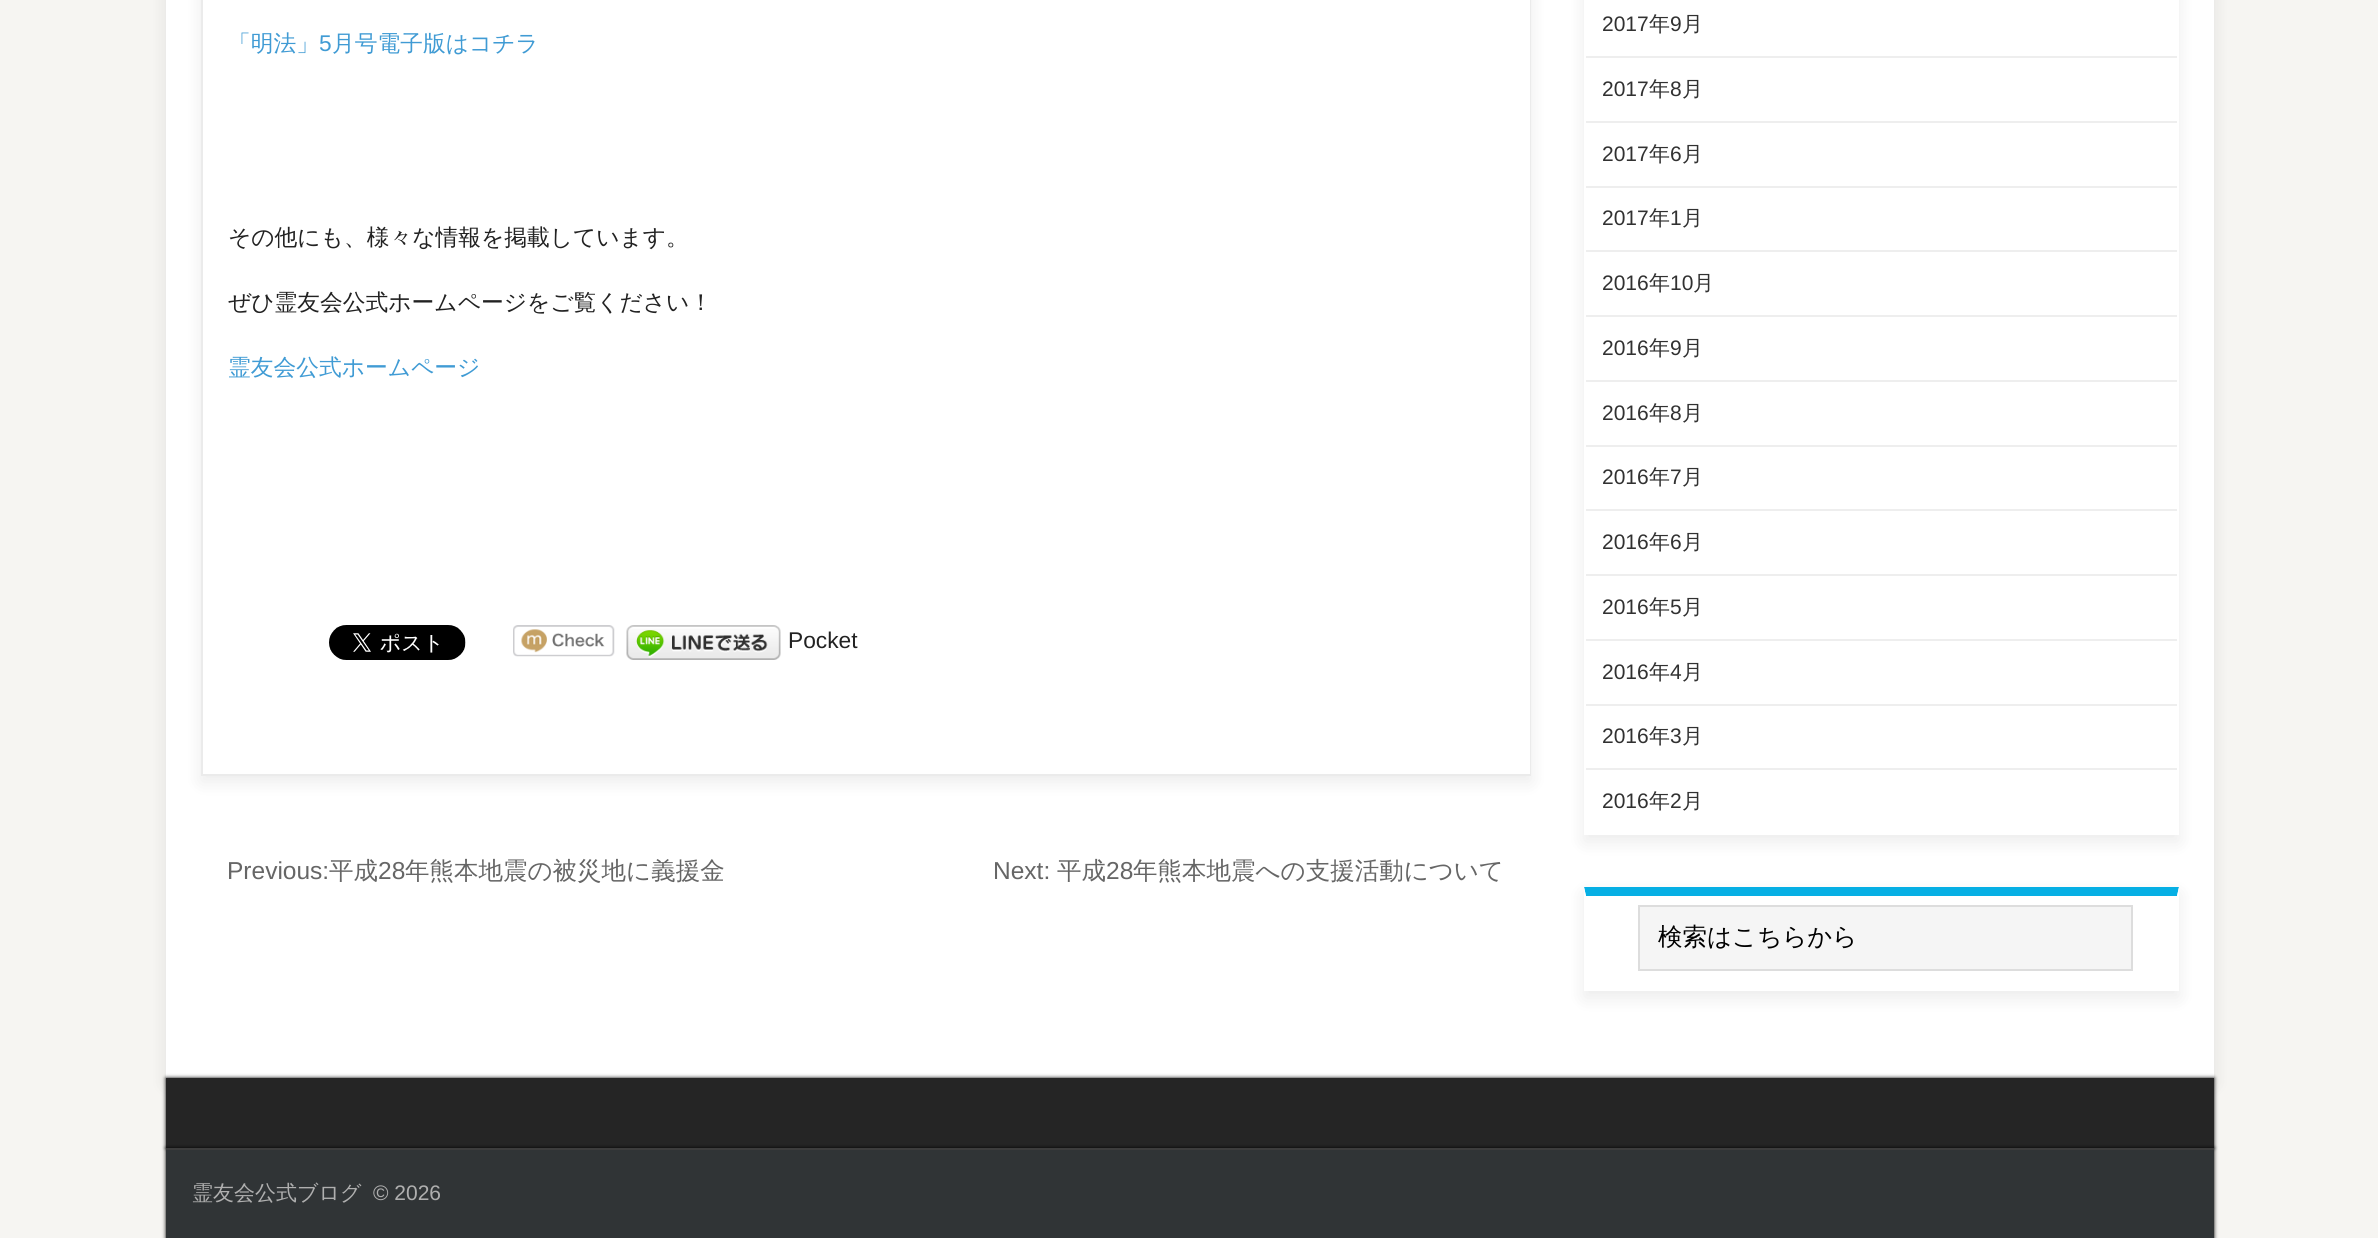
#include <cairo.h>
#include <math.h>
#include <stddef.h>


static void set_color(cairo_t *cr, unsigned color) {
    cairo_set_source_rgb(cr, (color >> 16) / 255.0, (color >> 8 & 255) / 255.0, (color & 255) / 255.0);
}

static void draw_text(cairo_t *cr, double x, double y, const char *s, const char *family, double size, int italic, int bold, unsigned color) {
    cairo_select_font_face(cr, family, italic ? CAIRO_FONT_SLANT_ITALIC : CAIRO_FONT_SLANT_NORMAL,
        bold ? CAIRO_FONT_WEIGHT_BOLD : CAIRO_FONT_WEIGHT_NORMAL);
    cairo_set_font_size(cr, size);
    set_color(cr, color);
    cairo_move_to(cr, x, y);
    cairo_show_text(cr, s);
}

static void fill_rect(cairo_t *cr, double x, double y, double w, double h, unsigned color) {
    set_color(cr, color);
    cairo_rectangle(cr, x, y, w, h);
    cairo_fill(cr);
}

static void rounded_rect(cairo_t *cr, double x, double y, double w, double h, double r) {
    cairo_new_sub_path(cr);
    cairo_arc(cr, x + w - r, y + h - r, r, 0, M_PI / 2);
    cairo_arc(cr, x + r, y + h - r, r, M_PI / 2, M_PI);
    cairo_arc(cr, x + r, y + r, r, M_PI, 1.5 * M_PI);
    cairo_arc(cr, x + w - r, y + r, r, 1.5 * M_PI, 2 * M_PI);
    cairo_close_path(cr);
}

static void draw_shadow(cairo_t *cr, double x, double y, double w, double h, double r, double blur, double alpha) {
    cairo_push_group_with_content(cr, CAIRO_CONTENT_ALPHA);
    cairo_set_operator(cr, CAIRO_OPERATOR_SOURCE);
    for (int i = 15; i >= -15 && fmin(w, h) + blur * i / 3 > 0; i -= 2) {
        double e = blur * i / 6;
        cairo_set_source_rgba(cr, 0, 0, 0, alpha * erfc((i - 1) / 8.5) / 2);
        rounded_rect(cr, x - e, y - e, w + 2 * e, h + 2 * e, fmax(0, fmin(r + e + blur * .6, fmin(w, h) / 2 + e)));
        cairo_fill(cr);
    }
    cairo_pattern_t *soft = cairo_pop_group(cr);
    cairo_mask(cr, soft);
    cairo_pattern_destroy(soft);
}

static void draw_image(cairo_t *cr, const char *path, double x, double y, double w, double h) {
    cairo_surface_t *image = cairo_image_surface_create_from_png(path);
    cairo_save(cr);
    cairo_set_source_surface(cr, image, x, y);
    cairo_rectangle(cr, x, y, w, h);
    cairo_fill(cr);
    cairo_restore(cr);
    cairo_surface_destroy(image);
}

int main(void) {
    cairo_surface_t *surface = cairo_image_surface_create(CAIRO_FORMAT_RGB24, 2378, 1238);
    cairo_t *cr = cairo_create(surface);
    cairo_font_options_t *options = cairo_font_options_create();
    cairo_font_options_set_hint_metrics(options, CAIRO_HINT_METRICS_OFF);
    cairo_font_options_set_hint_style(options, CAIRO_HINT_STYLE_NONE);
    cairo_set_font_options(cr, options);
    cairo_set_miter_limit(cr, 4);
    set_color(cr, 0xF6F5F2);
    cairo_paint(cr);
    set_color(cr, 0x000000);
    draw_shadow(cr, 166, -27, 2048, 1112, 0, 9, 0.08);
    fill_rect(cr, 166, 0, 2048, 1078, 0xFFFFFF);
    cairo_save(cr);
    cairo_set_fill_rule(cr, CAIRO_FILL_RULE_EVEN_ODD);
    cairo_new_path(cr);
    cairo_move_to(cr, 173, 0);
    cairo_line_to(cr, 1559, 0);
    cairo_line_to(cr, 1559, 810);
    cairo_line_to(cr, 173, 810);
    cairo_close_path(cr);
    cairo_move_to(cr, 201, -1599);
    cairo_line_to(cr, 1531, -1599);
    cairo_line_to(cr, 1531, 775);
    cairo_line_to(cr, 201, 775);
    cairo_close_path(cr);
    cairo_clip(cr);
    set_color(cr, 0x000000);
    draw_shadow(cr, 201, -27, 1330, 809, 0, 9, 0.08);
    cairo_restore(cr);
    set_color(cr, 0xEBEBEB);
    cairo_new_path(cr);
    cairo_move_to(cr, 1531, -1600);
    cairo_line_to(cr, 1531, 775);
    cairo_line_to(cr, 1530, 774);
    cairo_line_to(cr, 1530, -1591);
    cairo_close_path(cr);
    cairo_fill(cr);
    fill_rect(cr, 201, 774, 1330, 2, 0xEBEBEB);
    cairo_new_path(cr);
    cairo_move_to(cr, 201, 775);
    cairo_line_to(cr, 201, -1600);
    cairo_line_to(cr, 203, -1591);
    cairo_line_to(cr, 203, 774);
    cairo_close_path(cr);
    cairo_fill(cr);
    draw_text(cr, 228, 51, "「明法」", "WenQuanYi Zen Hei Medium", 22.75, 0, 0, 0x409BD4);
    draw_text(cr, 319, 51, "5", "Liberation Sans", 22.75, 0, 0, 0x409BD4);
    draw_text(cr, 332, 51, "月号電子版はコチラ", "WenQuanYi Zen Hei Medium", 22.75, 0, 0, 0x409BD4);
    draw_text(cr, 228, 245, "その他にも、様々な情報を掲載しています。", "WenQuanYi Zen Hei Medium", 22.75, 0, 0, 0x222222);
    draw_text(cr, 228, 310, "ぜひ霊友会公式ホームページをご覧ください！", "WenQuanYi Zen Hei Medium", 22.75, 0, 0, 0x222222);
    draw_text(cr, 228, 375, "霊友会公式ホームページ", "WenQuanYi Zen Hei Medium", 22.75, 0, 0, 0x409BD4);
    draw_image(cr, "assets/img1.png", 329, 625, 137, 35);
    draw_image(cr, "assets/img2.png", 513, 625, 102, 32);
    draw_image(cr, "assets/img3.png", 626, 625, 155, 35);
    draw_text(cr, 788, 648, "Pocket", "Liberation Sans", 22.75, 0, 0, 0x222222);
    draw_text(cr, 227, 879, "Previous:", "Arimo", 24.5, 0, 0, 0x666666);
    draw_text(cr, 329, 879, "平成", "WenQuanYi Zen Hei Medium", 24.5, 0, 0, 0x666666);
    draw_text(cr, 378, 879, "28", "Arimo", 24.5, 0, 0, 0x666666);
    draw_text(cr, 405, 879, "年熊本地震の被災地に義援金", "WenQuanYi Zen Hei Medium", 24.5, 0, 0, 0x666666);
    draw_text(cr, 993, 879, "Next:", "Arimo", 24.5, 0, 0, 0x666666);
    draw_text(cr, 1057, 879, "平成", "WenQuanYi Zen Hei Medium", 24.5, 0, 0, 0x666666);
    draw_text(cr, 1106, 879, "28", "Arimo", 24.5, 0, 0, 0x666666);
    draw_text(cr, 1133, 879, "年熊本地震への支援活動について", "WenQuanYi Zen Hei Medium", 24.5, 0, 0, 0x666666);
    cairo_save(cr);
    cairo_set_fill_rule(cr, CAIRO_FILL_RULE_EVEN_ODD);
    cairo_new_path(cr);
    cairo_move_to(cr, 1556, 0);
    cairo_line_to(cr, 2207, 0);
    cairo_line_to(cr, 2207, 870);
    cairo_line_to(cr, 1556, 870);
    cairo_close_path(cr);
    cairo_move_to(cr, 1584, -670);
    cairo_line_to(cr, 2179, -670);
    cairo_line_to(cr, 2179, 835);
    cairo_line_to(cr, 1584, 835);
    cairo_close_path(cr);
    cairo_clip(cr);
    set_color(cr, 0x000000);
    draw_shadow(cr, 1584, -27, 595, 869, 0, 9, 0.08);
    cairo_restore(cr);
    set_color(cr, 0xFFFFFF);
    cairo_new_path(cr);
    cairo_move_to(cr, 2179, -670);
    cairo_line_to(cr, 2179, 835);
    cairo_line_to(cr, 2177, 833);
    cairo_line_to(cr, 2177, -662);
    cairo_close_path(cr);
    cairo_fill(cr);
    fill_rect(cr, 1584, 834, 595, 1, 0xFFFFFF);
    fill_rect(cr, 1586, 56, 591, 2, 0xEEEEEE);
    draw_text(cr, 1602, 31, "2017", "Liberation Sans", 21, 0, 0, 0x313131);
    draw_text(cr, 1649, 31, "年", "WenQuanYi Zen Hei Medium", 21, 0, 0, 0x313131);
    draw_text(cr, 1670, 31, "9", "Liberation Sans", 21, 0, 0, 0x313131);
    draw_text(cr, 1682, 31, "月", "WenQuanYi Zen Hei Medium", 21, 0, 0, 0x313131);
    fill_rect(cr, 1586, 121, 591, 2, 0xEEEEEE);
    draw_text(cr, 1602, 96, "2017", "Liberation Sans", 21, 0, 0, 0x313131);
    draw_text(cr, 1649, 96, "年", "WenQuanYi Zen Hei Medium", 21, 0, 0, 0x313131);
    draw_text(cr, 1670, 96, "8", "Liberation Sans", 21, 0, 0, 0x313131);
    draw_text(cr, 1682, 96, "月", "WenQuanYi Zen Hei Medium", 21, 0, 0, 0x313131);
    fill_rect(cr, 1586, 186, 591, 2, 0xEEEEEE);
    draw_text(cr, 1602, 161, "2017", "Liberation Sans", 21, 0, 0, 0x313131);
    draw_text(cr, 1649, 161, "年", "WenQuanYi Zen Hei Medium", 21, 0, 0, 0x313131);
    draw_text(cr, 1670, 161, "6", "Liberation Sans", 21, 0, 0, 0x313131);
    draw_text(cr, 1682, 161, "月", "WenQuanYi Zen Hei Medium", 21, 0, 0, 0x313131);
    fill_rect(cr, 1586, 250, 591, 2, 0xEEEEEE);
    draw_text(cr, 1602, 225, "2017", "Liberation Sans", 21, 0, 0, 0x313131);
    draw_text(cr, 1649, 225, "年", "WenQuanYi Zen Hei Medium", 21, 0, 0, 0x313131);
    draw_text(cr, 1670, 225, "1", "Liberation Sans", 21, 0, 0, 0x313131);
    draw_text(cr, 1682, 225, "月", "WenQuanYi Zen Hei Medium", 21, 0, 0, 0x313131);
    fill_rect(cr, 1586, 315, 591, 2, 0xEEEEEE);
    draw_text(cr, 1602, 290, "2016", "Liberation Sans", 21, 0, 0, 0x313131);
    draw_text(cr, 1649, 290, "年", "WenQuanYi Zen Hei Medium", 21, 0, 0, 0x313131);
    draw_text(cr, 1670, 290, "10", "Liberation Sans", 21, 0, 0, 0x313131);
    draw_text(cr, 1693, 290, "月", "WenQuanYi Zen Hei Medium", 21, 0, 0, 0x313131);
    fill_rect(cr, 1586, 380, 591, 2, 0xEEEEEE);
    draw_text(cr, 1602, 355, "2016", "Liberation Sans", 21, 0, 0, 0x313131);
    draw_text(cr, 1649, 355, "年", "WenQuanYi Zen Hei Medium", 21, 0, 0, 0x313131);
    draw_text(cr, 1670, 355, "9", "Liberation Sans", 21, 0, 0, 0x313131);
    draw_text(cr, 1682, 355, "月", "WenQuanYi Zen Hei Medium", 21, 0, 0, 0x313131);
    fill_rect(cr, 1586, 445, 591, 2, 0xEEEEEE);
    draw_text(cr, 1602, 420, "2016", "Liberation Sans", 21, 0, 0, 0x313131);
    draw_text(cr, 1649, 420, "年", "WenQuanYi Zen Hei Medium", 21, 0, 0, 0x313131);
    draw_text(cr, 1670, 420, "8", "Liberation Sans", 21, 0, 0, 0x313131);
    draw_text(cr, 1682, 420, "月", "WenQuanYi Zen Hei Medium", 21, 0, 0, 0x313131);
    fill_rect(cr, 1586, 509, 591, 2, 0xEEEEEE);
    draw_text(cr, 1602, 484, "2016", "Liberation Sans", 21, 0, 0, 0x313131);
    draw_text(cr, 1649, 484, "年", "WenQuanYi Zen Hei Medium", 21, 0, 0, 0x313131);
    draw_text(cr, 1670, 484, "7", "Liberation Sans", 21, 0, 0, 0x313131);
    draw_text(cr, 1682, 484, "月", "WenQuanYi Zen Hei Medium", 21, 0, 0, 0x313131);
    fill_rect(cr, 1586, 574, 591, 2, 0xEEEEEE);
    draw_text(cr, 1602, 549, "2016", "Liberation Sans", 21, 0, 0, 0x313131);
    draw_text(cr, 1649, 549, "年", "WenQuanYi Zen Hei Medium", 21, 0, 0, 0x313131);
    draw_text(cr, 1670, 549, "6", "Liberation Sans", 21, 0, 0, 0x313131);
    draw_text(cr, 1682, 549, "月", "WenQuanYi Zen Hei Medium", 21, 0, 0, 0x313131);
    fill_rect(cr, 1586, 639, 591, 2, 0xEEEEEE);
    draw_text(cr, 1602, 614, "2016", "Liberation Sans", 21, 0, 0, 0x313131);
    draw_text(cr, 1649, 614, "年", "WenQuanYi Zen Hei Medium", 21, 0, 0, 0x313131);
    draw_text(cr, 1670, 614, "5", "Liberation Sans", 21, 0, 0, 0x313131);
    draw_text(cr, 1682, 614, "月", "WenQuanYi Zen Hei Medium", 21, 0, 0, 0x313131);
    fill_rect(cr, 1586, 704, 591, 2, 0xEEEEEE);
    draw_text(cr, 1602, 679, "2016", "Liberation Sans", 21, 0, 0, 0x313131);
    draw_text(cr, 1649, 679, "年", "WenQuanYi Zen Hei Medium", 21, 0, 0, 0x313131);
    draw_text(cr, 1670, 679, "4", "Liberation Sans", 21, 0, 0, 0x313131);
    draw_text(cr, 1682, 679, "月", "WenQuanYi Zen Hei Medium", 21, 0, 0, 0x313131);
    fill_rect(cr, 1586, 768, 591, 2, 0xEEEEEE);
    draw_text(cr, 1602, 743, "2016", "Liberation Sans", 21, 0, 0, 0x313131);
    draw_text(cr, 1649, 743, "年", "WenQuanYi Zen Hei Medium", 21, 0, 0, 0x313131);
    draw_text(cr, 1670, 743, "3", "Liberation Sans", 21, 0, 0, 0x313131);
    draw_text(cr, 1682, 743, "月", "WenQuanYi Zen Hei Medium", 21, 0, 0, 0x313131);
    draw_text(cr, 1602, 808, "2016", "Liberation Sans", 21, 0, 0, 0x313131);
    draw_text(cr, 1649, 808, "年", "WenQuanYi Zen Hei Medium", 21, 0, 0, 0x313131);
    draw_text(cr, 1670, 808, "2", "Liberation Sans", 21, 0, 0, 0x313131);
    draw_text(cr, 1682, 808, "月", "WenQuanYi Zen Hei Medium", 21, 0, 0, 0x313131);
    cairo_save(cr);
    cairo_set_fill_rule(cr, CAIRO_FILL_RULE_EVEN_ODD);
    cairo_new_path(cr);
    cairo_move_to(cr, 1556, 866);
    cairo_line_to(cr, 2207, 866);
    cairo_line_to(cr, 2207, 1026);
    cairo_line_to(cr, 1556, 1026);
    cairo_close_path(cr);
    cairo_move_to(cr, 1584, 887);
    cairo_line_to(cr, 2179, 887);
    cairo_line_to(cr, 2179, 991);
    cairo_line_to(cr, 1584, 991);
    cairo_close_path(cr);
    cairo_clip(cr);
    set_color(cr, 0x000000);
    draw_shadow(cr, 1584, 894, 595, 104, 0, 9, 0.08);
    cairo_restore(cr);
    set_color(cr, 0x06AFE4);
    cairo_new_path(cr);
    cairo_move_to(cr, 1584, 887);
    cairo_line_to(cr, 2179, 887);
    cairo_line_to(cr, 2177, 896);
    cairo_line_to(cr, 1586, 896);
    cairo_close_path(cr);
    cairo_fill(cr);
    set_color(cr, 0xFFFFFF);
    cairo_new_path(cr);
    cairo_move_to(cr, 2179, 887);
    cairo_line_to(cr, 2179, 990);
    cairo_line_to(cr, 2177, 989);
    cairo_line_to(cr, 2177, 896);
    cairo_close_path(cr);
    cairo_fill(cr);
    fill_rect(cr, 1584, 990, 595, 1, 0xFFFFFF);
    cairo_new_path(cr);
    cairo_move_to(cr, 1584, 990);
    cairo_line_to(cr, 1584, 887);
    cairo_line_to(cr, 1586, 896);
    cairo_line_to(cr, 1586, 989);
    cairo_close_path(cr);
    cairo_fill(cr);
    set_color(cr, 0xF5F5F5);
    cairo_rectangle(cr, 1639, 906, 493, 64);
    cairo_fill_preserve(cr);
    set_color(cr, 0xDDDDDD);
    cairo_stroke(cr);
    draw_text(cr, 1658, 945, "検索はこちらから", "WenQuanYi Zen Hei Medium", 24.5, 0, 0, 0x000000);
    set_color(cr, 0x000000);
    draw_shadow(cr, 166, 1078, 2048, 70, 0, 2, 1);
    fill_rect(cr, 166, 1078, 2048, 70, 0x252525);
    set_color(cr, 0x000000);
    draw_shadow(cr, 166, 1148, 2048, 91, 0, 2, 1);
    fill_rect(cr, 166, 1150, 2048, 88, 0x303436);
    fill_rect(cr, 166, 1148, 2048, 2, 0x3D3D3D);
    draw_text(cr, 192, 1200, "霊友会公式ブログ", "WenQuanYi Zen Hei Medium", 21, 0, 0, 0xAFAFAF);
    draw_text(cr, 373, 1200, "© 2026", "Arimo", 21, 0, 0, 0xAFAFAF);
    cairo_surface_write_to_png(surface, "output.png");
    cairo_font_options_destroy(options);
    cairo_destroy(cr);
    cairo_surface_destroy(surface);
    return 0;
}
